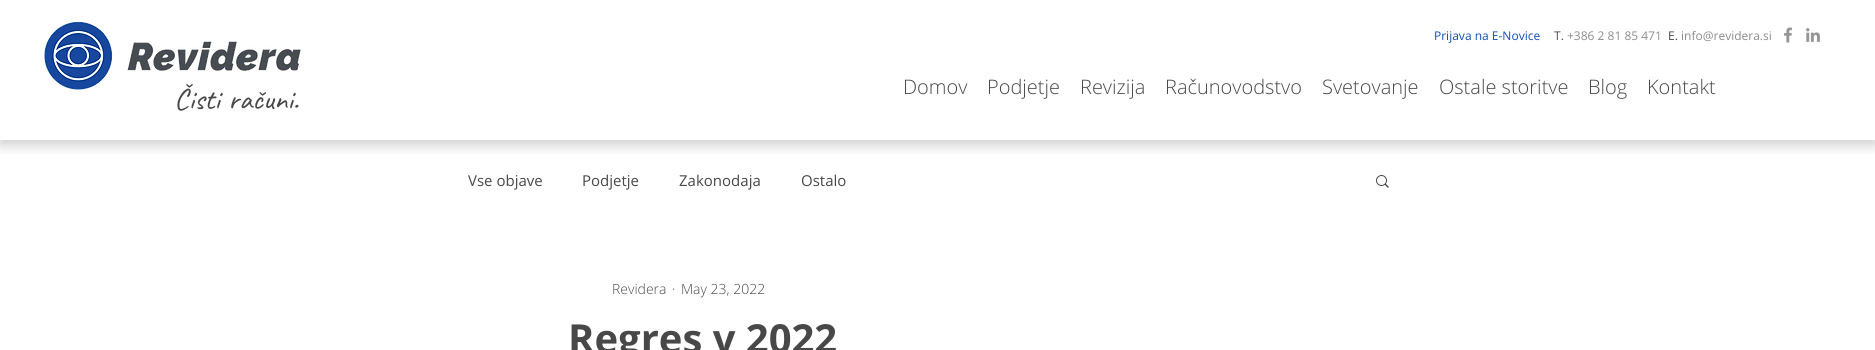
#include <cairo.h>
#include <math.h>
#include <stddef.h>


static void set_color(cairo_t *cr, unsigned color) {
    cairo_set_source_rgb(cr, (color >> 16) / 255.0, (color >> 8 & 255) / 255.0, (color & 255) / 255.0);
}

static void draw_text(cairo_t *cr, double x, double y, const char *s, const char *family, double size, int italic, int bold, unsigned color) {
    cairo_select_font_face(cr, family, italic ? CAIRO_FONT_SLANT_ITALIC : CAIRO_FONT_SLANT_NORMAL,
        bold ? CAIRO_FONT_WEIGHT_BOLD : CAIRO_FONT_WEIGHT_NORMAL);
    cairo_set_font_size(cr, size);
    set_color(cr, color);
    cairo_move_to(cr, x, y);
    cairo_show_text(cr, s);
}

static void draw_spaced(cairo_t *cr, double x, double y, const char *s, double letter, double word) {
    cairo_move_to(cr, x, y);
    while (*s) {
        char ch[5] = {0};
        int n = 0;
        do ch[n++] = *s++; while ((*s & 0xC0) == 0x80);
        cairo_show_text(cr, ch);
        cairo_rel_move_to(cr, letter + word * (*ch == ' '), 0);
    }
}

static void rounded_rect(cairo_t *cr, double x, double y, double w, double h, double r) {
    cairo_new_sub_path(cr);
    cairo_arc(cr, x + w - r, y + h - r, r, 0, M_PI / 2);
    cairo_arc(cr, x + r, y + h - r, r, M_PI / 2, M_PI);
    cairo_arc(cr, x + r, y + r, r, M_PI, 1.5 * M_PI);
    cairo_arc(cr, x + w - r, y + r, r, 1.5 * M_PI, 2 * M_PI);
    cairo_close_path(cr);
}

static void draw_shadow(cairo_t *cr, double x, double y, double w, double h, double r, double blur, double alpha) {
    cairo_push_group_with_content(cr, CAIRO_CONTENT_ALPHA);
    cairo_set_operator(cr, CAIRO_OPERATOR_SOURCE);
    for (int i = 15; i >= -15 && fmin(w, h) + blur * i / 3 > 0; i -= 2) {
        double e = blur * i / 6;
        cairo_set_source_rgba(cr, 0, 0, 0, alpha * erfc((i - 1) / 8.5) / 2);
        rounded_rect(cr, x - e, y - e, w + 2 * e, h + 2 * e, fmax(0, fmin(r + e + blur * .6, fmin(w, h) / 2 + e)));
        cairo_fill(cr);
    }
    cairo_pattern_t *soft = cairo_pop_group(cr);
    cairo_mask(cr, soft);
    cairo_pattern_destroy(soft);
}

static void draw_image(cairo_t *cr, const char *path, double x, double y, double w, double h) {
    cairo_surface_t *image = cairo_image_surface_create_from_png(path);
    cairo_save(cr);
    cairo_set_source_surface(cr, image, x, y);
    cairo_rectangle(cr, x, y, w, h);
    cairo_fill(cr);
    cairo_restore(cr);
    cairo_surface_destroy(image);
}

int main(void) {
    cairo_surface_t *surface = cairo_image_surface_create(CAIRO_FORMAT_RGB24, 1875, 350);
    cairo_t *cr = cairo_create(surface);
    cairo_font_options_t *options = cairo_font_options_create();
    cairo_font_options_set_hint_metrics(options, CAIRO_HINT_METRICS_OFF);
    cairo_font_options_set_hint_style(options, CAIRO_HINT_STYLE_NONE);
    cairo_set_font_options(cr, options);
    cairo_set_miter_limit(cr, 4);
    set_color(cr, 0xFFFFFF);
    cairo_paint(cr);
    cairo_save(cr);
    cairo_rectangle(cr, 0, 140, 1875, 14);
    cairo_clip(cr);
    set_color(cr, 0x000000);
    draw_shadow(cr, 0, 5, 1875, 140, 0, 7, 0.2);
    cairo_restore(cr);
    draw_image(cr, "assets/img1.png", 44, 21, 69, 69);
    draw_image(cr, "assets/img2.png", 127, 41, 174, 30);
    cairo_select_font_face(cr, "Caveat", CAIRO_FONT_SLANT_NORMAL, CAIRO_FONT_WEIGHT_NORMAL);
    cairo_set_font_size(cr, 30);
    set_color(cr, 0x484848);
    draw_spaced(cr, 174, 109, "Čisti računi.", 0, 1);
    draw_text(cr, 1434, 40, "Prijava na E-Novice", "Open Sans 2", 12, 0, 0, 0x104FB9);
    draw_text(cr, 1554, 40, "T.", "Open Sans 2", 12, 0, 0, 0x484848);
    draw_text(cr, 1567, 40, "+386 2 81 85 471", "Open Sans 2", 12, 0, 0, 0x8C8C8C);
    draw_text(cr, 1668, 40, "E.", "Open Sans 2", 12, 0, 0, 0x484848);
    draw_text(cr, 1681, 40, "info@revidera.si", "Open Sans 2", 12, 0, 0, 0x8C8C8C);
    draw_image(cr, "assets/img3.png", 1784, 27, 8, 16);
    draw_image(cr, "assets/img4.png", 1806, 28, 14, 14);
    draw_text(cr, 903, 94, "Domov", "Open Sans 2 Light", 20, 0, 0, 0x484848);
    draw_text(cr, 987, 94, "Podjetje", "Open Sans 2 Light", 20, 0, 0, 0x484848);
    draw_text(cr, 1080, 94, "Revizija", "Open Sans 2 Light", 20, 0, 0, 0x484848);
    draw_text(cr, 1165, 94, "Računovodstvo", "Open Sans 2 Light", 20, 0, 0, 0x484848);
    draw_text(cr, 1322, 94, "Svetovanje", "Open Sans 2 Light", 20, 0, 0, 0x484848);
    draw_text(cr, 1439, 94, "Ostale storitve", "Open Sans 2 Light", 20, 0, 0, 0x484848);
    draw_text(cr, 1588, 94, "Blog", "Open Sans 2 Light", 20, 0, 0, 0x484848);
    draw_text(cr, 1647, 94, "Kontakt", "Open Sans 2 Light", 20, 0, 0, 0x484848);
    draw_text(cr, 468, 186, "Vse objave", "Open Sans", 15, 0, 0, 0x484848);
    draw_text(cr, 582, 186, "Podjetje", "Open Sans", 15, 0, 0, 0x484848);
    draw_text(cr, 679, 186, "Zakonodaja", "Open Sans", 15, 0, 0, 0x484848);
    draw_text(cr, 801, 186, "Ostalo", "Open Sans", 15, 0, 0, 0x484848);
    draw_image(cr, "assets/img5.png", 1376, 175, 13, 13);
    draw_text(cr, 612, 294, "Revidera", "Open Sans Light", 14, 0, 0, 0x484848);
    draw_text(cr, 672, 294, "·", "Open Sans Light", 14, 0, 0, 0x484848);
    draw_text(cr, 681, 294, "May 23, 2022", "Open Sans Light", 14, 0, 0, 0x484848);
    draw_text(cr, 568, 353, "Regres v 2022", "Open Sans", 40, 0, 1, 0x484848);
    cairo_surface_write_to_png(surface, "output.png");
    cairo_font_options_destroy(options);
    cairo_destroy(cr);
    cairo_surface_destroy(surface);
    return 0;
}
